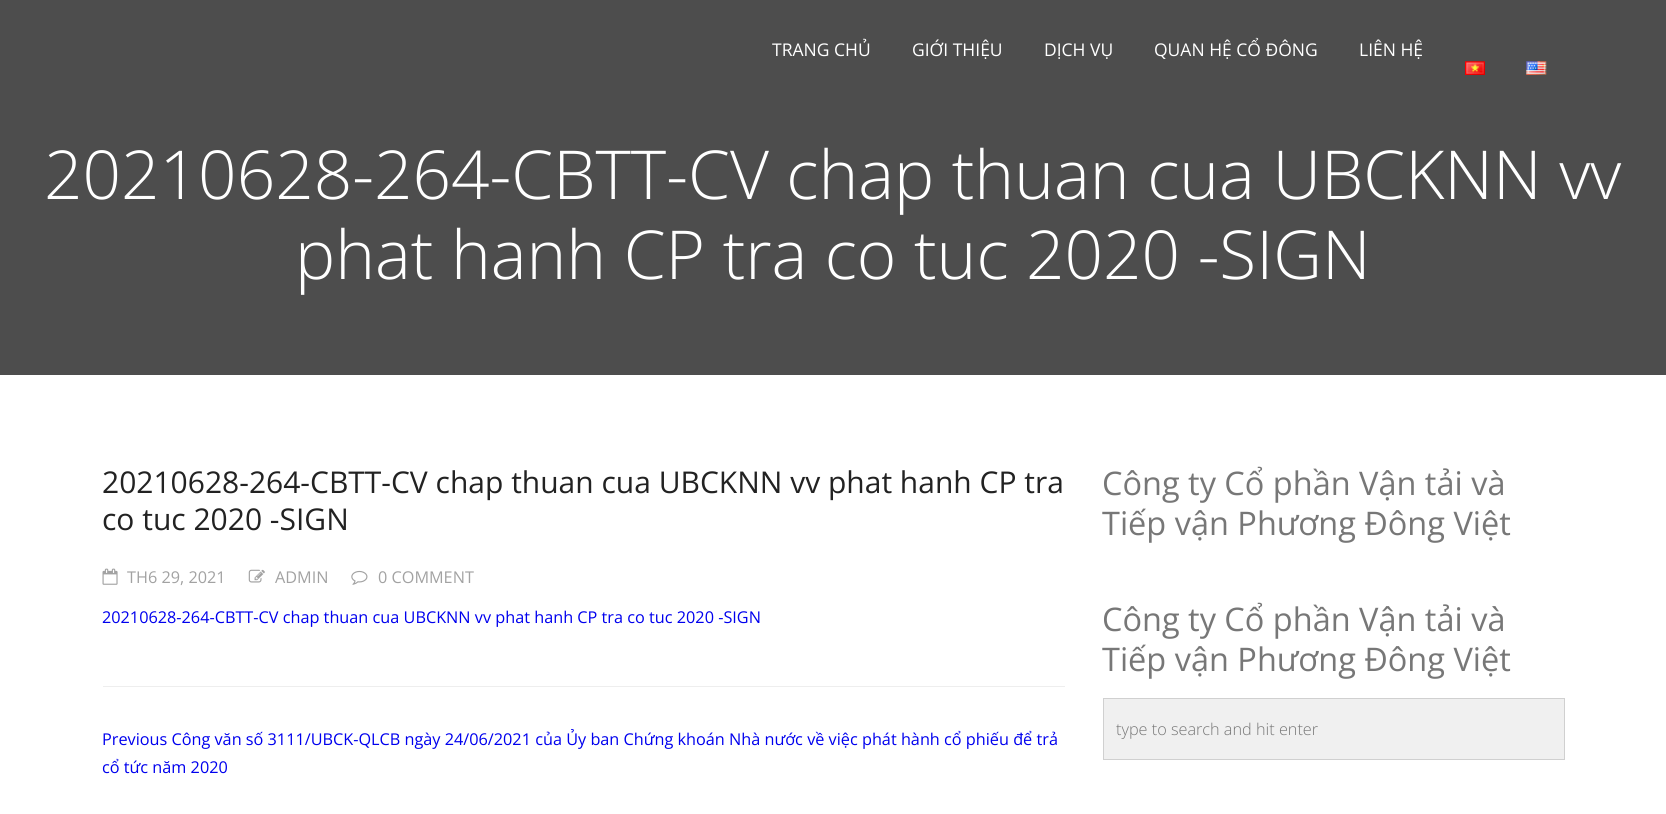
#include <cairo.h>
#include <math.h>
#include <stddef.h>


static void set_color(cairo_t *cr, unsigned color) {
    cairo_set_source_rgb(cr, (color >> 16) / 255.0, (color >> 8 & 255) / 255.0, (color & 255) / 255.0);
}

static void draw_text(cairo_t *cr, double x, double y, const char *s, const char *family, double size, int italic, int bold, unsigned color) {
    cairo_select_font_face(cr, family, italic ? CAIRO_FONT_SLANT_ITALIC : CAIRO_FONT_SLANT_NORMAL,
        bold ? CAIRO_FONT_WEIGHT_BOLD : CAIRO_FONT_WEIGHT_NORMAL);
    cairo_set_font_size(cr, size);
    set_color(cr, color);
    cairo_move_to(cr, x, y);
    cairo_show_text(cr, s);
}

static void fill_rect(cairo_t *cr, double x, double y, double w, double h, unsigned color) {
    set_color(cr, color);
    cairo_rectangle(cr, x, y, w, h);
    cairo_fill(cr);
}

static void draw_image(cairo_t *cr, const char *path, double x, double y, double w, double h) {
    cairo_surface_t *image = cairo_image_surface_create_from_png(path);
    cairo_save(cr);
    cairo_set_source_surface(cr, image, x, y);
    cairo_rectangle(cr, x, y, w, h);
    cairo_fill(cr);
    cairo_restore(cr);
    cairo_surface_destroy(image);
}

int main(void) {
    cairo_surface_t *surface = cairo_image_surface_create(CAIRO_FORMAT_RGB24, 1666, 814);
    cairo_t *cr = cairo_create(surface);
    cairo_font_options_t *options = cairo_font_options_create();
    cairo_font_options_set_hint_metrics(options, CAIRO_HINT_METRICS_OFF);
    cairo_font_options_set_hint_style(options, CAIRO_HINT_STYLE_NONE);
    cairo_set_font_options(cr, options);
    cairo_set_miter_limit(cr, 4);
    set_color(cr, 0xFFFFFF);
    cairo_paint(cr);
    fill_rect(cr, 0, 0, 1666, 375, 0x4D4D4D);
    draw_text(cr, 772, 56, "TRANG CHỦ", "Open Sans", 17.5, 0, 0, 0xFFFFFF);
    draw_text(cr, 912, 56, "GIỚI THIỆU", "Open Sans", 17.5, 0, 0, 0xFFFFFF);
    draw_text(cr, 1044, 56, "DỊCH VỤ", "Open Sans", 17.5, 0, 0, 0xFFFFFF);
    draw_text(cr, 1154, 56, "QUAN HỆ CỔ ĐÔNG", "Open Sans", 17.5, 0, 0, 0xFFFFFF);
    draw_text(cr, 1359, 56, "LIÊN HỆ", "Open Sans", 17.5, 0, 0, 0xFFFFFF);
    draw_image(cr, "assets/img1.png", 1465, 61, 20, 14);
    draw_image(cr, "assets/img2.png", 1526, 61, 21, 14);
    draw_text(cr, 44, 199, "20210628-264-CBTT-CV chap thuan cua UBCKNN vv", "Open Sans Light", 67.5, 0, 0, 0xFFFFFF);
    draw_text(cr, 295, 279, "phat hanh CP tra co tuc 2020 -SIGN", "Open Sans Light", 67.5, 0, 0, 0xFFFFFF);
    fill_rect(cr, 103, 686, 962, 1, 0xEEEEEE);
    draw_text(cr, 102, 493, "20210628-264-CBTT-CV chap thuan cua UBCKNN vv phat hanh CP tra", "Open Sans", 30, 0, 0, 0x222222);
    draw_text(cr, 102, 530, "co tuc 2020 -SIGN", "Open Sans", 30, 0, 0, 0x222222);
    draw_image(cr, "assets/img3.png", 102, 568, 16, 17);
    draw_text(cr, 127, 583, "TH6 29, 2021", "Open Sans", 16.25, 0, 0, 0xA2A2A2);
    draw_image(cr, "assets/img4.png", 248, 569, 17, 14);
    draw_text(cr, 275, 583, "ADMIN", "Open Sans", 16.25, 0, 0, 0xA2A2A2);
    draw_image(cr, "assets/img5.png", 351, 570, 17, 15);
    draw_text(cr, 378, 583, "0 COMMENT", "Open Sans", 16.25, 0, 0, 0xA2A2A2);
    draw_text(cr, 102, 623, "20210628-264-CBTT-CV chap thuan cua UBCKNN vv phat hanh CP tra co tuc 2020 -SIGN", "Open Sans", 16.25, 0, 0, 0x0000EE);
    draw_text(cr, 102, 745, "Previous Công văn số 3111/UBCK-QLCB ngày 24/06/2021 của Ủy ban Chứng khoán Nhà nước về việc phát hành cổ phiếu để trả", "Open Sans", 16.25, 0, 0, 0x0000EE);
    draw_text(cr, 102, 773, "cổ tức năm 2020", "Open Sans", 16.25, 0, 0, 0x0000EE);
    draw_text(cr, 1102, 495, "Công ty Cổ phần Vận tải và", "Open Sans", 32.5, 0, 0, 0x777777);
    draw_text(cr, 1102, 535, "Tiếp vận Phương Đông Việt", "Open Sans", 32.5, 0, 0, 0x777777);
    draw_text(cr, 1102, 631, "Công ty Cổ phần Vận tải và", "Open Sans", 32.5, 0, 0, 0x777777);
    draw_text(cr, 1102, 671, "Tiếp vận Phương Đông Việt", "Open Sans", 32.5, 0, 0, 0x777777);
    set_color(cr, 0xF0F0F0);
    cairo_rectangle(cr, 1103.5, 698.5, 461, 61);
    cairo_fill_preserve(cr);
    set_color(cr, 0xD0D0D0);
    cairo_set_line_width(cr, 1);
    cairo_stroke(cr);
    draw_text(cr, 1116, 735, "type to search and hit enter", "Open Sans Light", 16.25, 0, 0, 0x777777);
    cairo_surface_write_to_png(surface, "output.png");
    cairo_font_options_destroy(options);
    cairo_destroy(cr);
    cairo_surface_destroy(surface);
    return 0;
}
